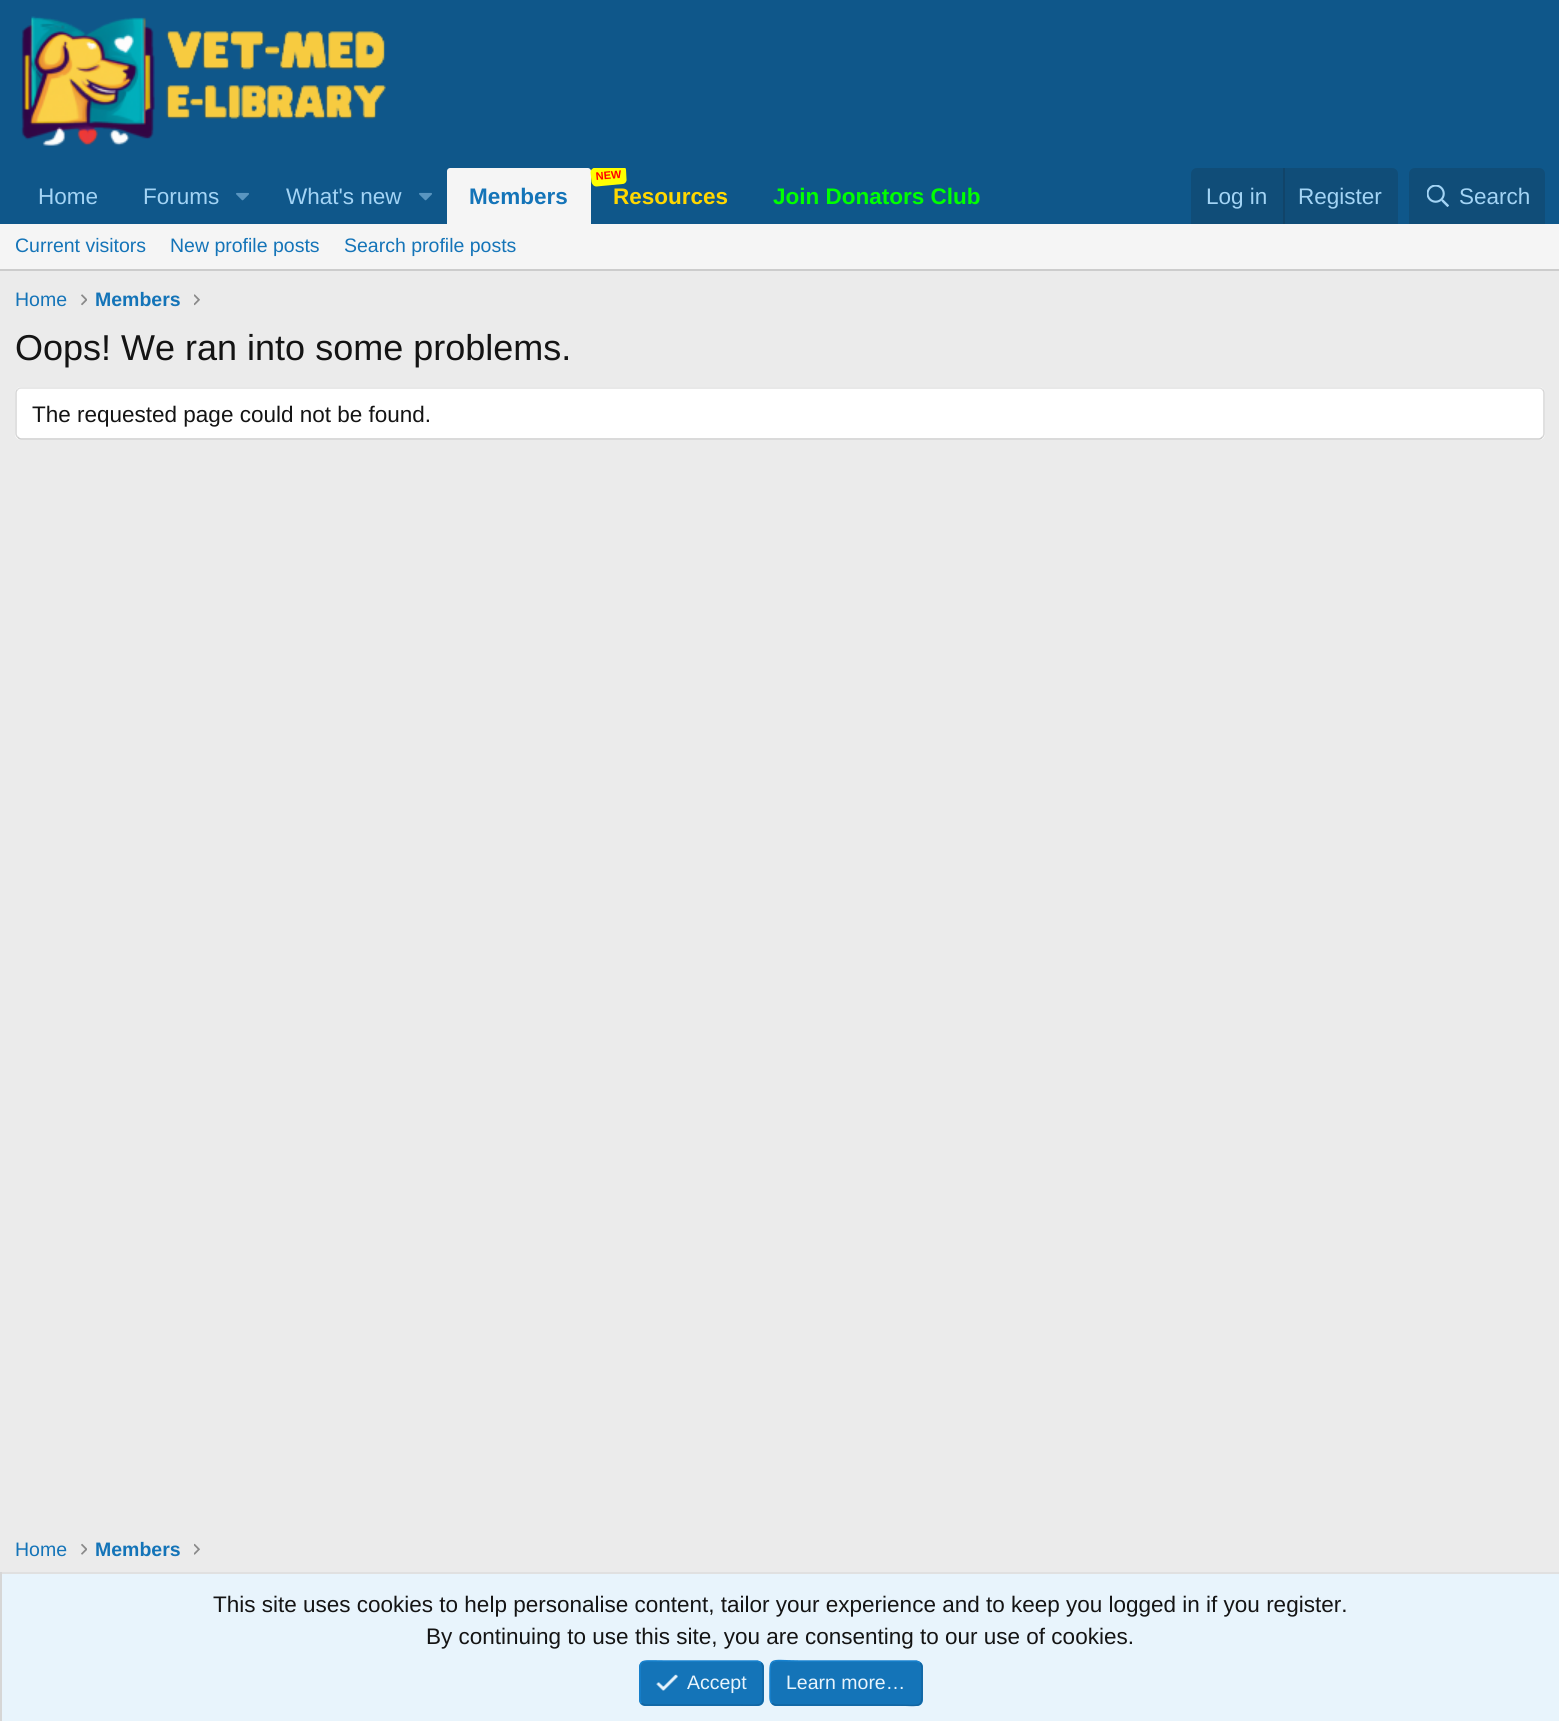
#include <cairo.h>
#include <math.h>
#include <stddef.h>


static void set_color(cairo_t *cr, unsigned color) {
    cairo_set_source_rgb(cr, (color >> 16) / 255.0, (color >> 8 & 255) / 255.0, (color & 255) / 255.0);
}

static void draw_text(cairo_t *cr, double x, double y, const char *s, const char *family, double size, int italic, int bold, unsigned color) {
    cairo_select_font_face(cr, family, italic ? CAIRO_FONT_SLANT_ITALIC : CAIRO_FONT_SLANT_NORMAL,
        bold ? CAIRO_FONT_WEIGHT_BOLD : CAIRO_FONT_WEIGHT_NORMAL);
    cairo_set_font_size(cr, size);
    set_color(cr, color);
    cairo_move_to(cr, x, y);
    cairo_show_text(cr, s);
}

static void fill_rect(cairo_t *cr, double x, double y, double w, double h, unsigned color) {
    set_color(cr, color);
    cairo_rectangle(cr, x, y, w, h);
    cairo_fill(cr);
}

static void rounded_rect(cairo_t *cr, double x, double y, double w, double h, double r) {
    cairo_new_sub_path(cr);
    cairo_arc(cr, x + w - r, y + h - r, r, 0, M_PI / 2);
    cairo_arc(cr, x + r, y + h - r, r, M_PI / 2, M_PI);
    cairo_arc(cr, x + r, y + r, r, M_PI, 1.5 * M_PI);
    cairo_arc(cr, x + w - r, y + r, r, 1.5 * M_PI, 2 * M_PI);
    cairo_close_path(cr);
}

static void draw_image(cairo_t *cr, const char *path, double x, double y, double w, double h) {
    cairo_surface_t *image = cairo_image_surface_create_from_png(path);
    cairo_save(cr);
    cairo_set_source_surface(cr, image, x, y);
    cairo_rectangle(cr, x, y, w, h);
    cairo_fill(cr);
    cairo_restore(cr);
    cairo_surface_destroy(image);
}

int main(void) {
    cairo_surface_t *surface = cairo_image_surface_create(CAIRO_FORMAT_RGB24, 1559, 1721);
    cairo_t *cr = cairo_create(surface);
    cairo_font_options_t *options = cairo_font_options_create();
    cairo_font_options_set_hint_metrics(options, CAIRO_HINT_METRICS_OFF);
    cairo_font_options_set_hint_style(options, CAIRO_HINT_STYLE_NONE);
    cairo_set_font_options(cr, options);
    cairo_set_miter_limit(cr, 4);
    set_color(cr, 0xEBEBEB);
    cairo_paint(cr);
    fill_rect(cr, 0, 0, 1559, 224, 0x0F578A);
    draw_image(cr, "assets/img1.png", 21, 16, 365, 130);
    draw_text(cr, 38, 204, "Home", "Liberation Sans", 22.5, 0, 0, 0xA3D4F5);
    draw_text(cr, 143, 204, "Forums", "Liberation Sans", 22.5, 0, 0, 0xA3D4F5);
    draw_image(cr, "assets/img2.png", 236, 192, 13, 9);
    draw_text(cr, 286, 204, "What's new", "Liberation Sans", 22.5, 0, 0, 0xA3D4F5);
    draw_image(cr, "assets/img2.png", 419, 192, 13, 9);
    set_color(cr, 0xF5F5F5);
    cairo_new_path(cr);
    cairo_move_to(cr, 450, 168);
    cairo_line_to(cr, 588, 168);
    cairo_curve_to(cr, 589.5, 168, 591, 169.5, 591, 171);
    cairo_line_to(cr, 591, 224);
    cairo_line_to(cr, 447, 224);
    cairo_line_to(cr, 447, 171);
    cairo_curve_to(cr, 447, 169.5, 448.5, 168, 450, 168);
    cairo_close_path(cr);
    cairo_fill(cr);
    draw_text(cr, 469, 204, "Members", "Liberation Sans", 22.5, 0, 1, 0x1474B8);
    cairo_save(cr);
    cairo_rectangle(cr, 0, 168, 1019, 56);
    cairo_clip(cr);
    set_color(cr, 0xFFFF00);
    cairo_new_path(cr);
    cairo_move_to(cr, 595, 167.5);
    cairo_line_to(cr, 621, 165.5);
    cairo_curve_to(cr, 623.5, 165, 625.5, 167, 626, 169.5);
    cairo_line_to(cr, 626.5, 179);
    cairo_curve_to(cr, 627, 181.5, 625, 184, 622.5, 184);
    cairo_line_to(cr, 596.5, 186.5);
    cairo_curve_to(cr, 594, 186.5, 592, 184.5, 591.5, 182);
    cairo_line_to(cr, 590.5, 172.5);
    cairo_curve_to(cr, 590.5, 170, 592.5, 168, 595, 167.5);
    cairo_close_path(cr);
    cairo_fill(cr);
    cairo_restore(cr);
    cairo_save(cr);
    cairo_translate(cr, 596, 180);
    cairo_rotate(cr, -5 * M_PI / 180);
    draw_text(cr, 0, 0, "NEW", "Liberation Sans", 11, 0, 1, 0xFF0000);
    cairo_restore(cr);
    draw_text(cr, 613, 204, "Resources", "Liberation Sans", 22.5, 0, 1, 0xFFD700);
    draw_text(cr, 773, 204, "Join Donators Club", "Liberation Sans", 22.5, 0, 1, 0x00FF00);
    set_color(cr, 0x104D78);
    cairo_new_path(cr);
    cairo_move_to(cr, 1197, 168);
    cairo_line_to(cr, 1392, 168);
    cairo_curve_to(cr, 1395.5, 168, 1398, 170.5, 1398, 174);
    cairo_line_to(cr, 1398, 224);
    cairo_line_to(cr, 1191, 224);
    cairo_line_to(cr, 1191, 174);
    cairo_curve_to(cr, 1191, 170.5, 1193.5, 168, 1197, 168);
    cairo_close_path(cr);
    cairo_fill(cr);
    draw_text(cr, 1206, 204, "Log in", "Liberation Sans", 22.5, 0, 0, 0xA3D4F5);
    fill_rect(cr, 1283, 168, 2, 56, 0x114469);
    draw_text(cr, 1298, 204, "Register", "Liberation Sans", 22.5, 0, 0, 0xA3D4F5);
    set_color(cr, 0x104D78);
    cairo_new_path(cr);
    cairo_move_to(cr, 1415, 168);
    cairo_line_to(cr, 1539, 168);
    cairo_curve_to(cr, 1542.5, 168, 1545, 170.5, 1545, 174);
    cairo_line_to(cr, 1545, 224);
    cairo_line_to(cr, 1409, 224);
    cairo_line_to(cr, 1409, 174);
    cairo_curve_to(cr, 1409, 170.5, 1411.5, 168, 1415, 168);
    cairo_close_path(cr);
    cairo_fill(cr);
    draw_image(cr, "assets/img3.png", 1427, 185, 22, 22);
    draw_text(cr, 1459, 204, "Search", "Liberation Sans", 22.5, 0, 0, 0xA3D4F5);
    fill_rect(cr, 0, 224, 1559, 45, 0xF5F5F5);
    fill_rect(cr, 0, 269, 1559, 2, 0xCCCCCC);
    draw_text(cr, 15, 252, "Current visitors", "Liberation Sans", 19.5, 0, 0, 0x1474B8);
    draw_text(cr, 170, 252, "New profile posts", "Liberation Sans", 19.5, 0, 0, 0x1474B8);
    draw_text(cr, 344, 252, "Search profile posts", "Liberation Sans", 19.5, 0, 0, 0x1474B8);
    draw_text(cr, 15, 306, "Home", "Liberation Sans", 19.5, 0, 0, 0x1474B8);
    draw_image(cr, "assets/img4.png", 81, 294, 6, 12);
    draw_text(cr, 95, 306, "Members", "Liberation Sans", 19.5, 0, 1, 0x1474B8);
    draw_image(cr, "assets/img5.png", 194, 294, 6, 12);
    draw_text(cr, 15, 360, "Oops! We ran into some problems.", "Liberation Sans", 36, 0, 0, 0x141414);
    set_color(cr, 0xFFFFFF);
    rounded_rect(cr, 15, 387, 1530, 53, 6);
    cairo_fill(cr);
    cairo_new_path(cr);
    cairo_move_to(cr, 17.5, 389.5);
    cairo_curve_to(cr, 18.5, 388.5, 19.5, 388, 21, 388);
    cairo_line_to(cr, 1539, 388);
    cairo_curve_to(cr, 1540.5, 388, 1541.5, 388.5, 1542.5, 389.5);
    set_color(cr, 0xE0E0E0);
    cairo_set_line_width(cr, 1.5);
    cairo_stroke(cr);
    cairo_new_path(cr);
    cairo_move_to(cr, 1542.5, 389.5);
    cairo_curve_to(cr, 1543.5, 390.5, 1544, 391.5, 1544, 393);
    cairo_line_to(cr, 1544, 433.5);
    cairo_curve_to(cr, 1544, 435, 1543.5, 436, 1542.5, 437);
    set_color(cr, 0xD6D6D6);
    cairo_stroke(cr);
    cairo_new_path(cr);
    cairo_move_to(cr, 1542.5, 437);
    cairo_curve_to(cr, 1541.5, 438, 1540.5, 439, 1539, 439);
    cairo_line_to(cr, 21, 439);
    cairo_curve_to(cr, 19.5, 439, 18.5, 438, 17.5, 437);
    set_color(cr, 0xCCCCCC);
    cairo_stroke(cr);
    cairo_new_path(cr);
    cairo_move_to(cr, 17.5, 437);
    cairo_curve_to(cr, 16.5, 436, 16, 435, 16, 433.5);
    cairo_line_to(cr, 16, 393);
    cairo_curve_to(cr, 16, 391.5, 16.5, 390.5, 17.5, 389.5);
    set_color(cr, 0xD6D6D6);
    cairo_stroke(cr);
    draw_text(cr, 32, 422, "The requested page could not be found.", "Liberation Sans", 22.5, 0, 0, 0x141414);
    draw_text(cr, 15, 1556, "Home", "Liberation Sans", 19.5, 0, 0, 0x1474B8);
    draw_image(cr, "assets/img6.png", 81, 1543, 6, 12);
    draw_text(cr, 95, 1556, "Members", "Liberation Sans", 19.5, 0, 1, 0x1474B8);
    draw_image(cr, "assets/img7.png", 194, 1543, 6, 12);
    fill_rect(cr, 2, 1574, 1557, 147, 0xE8F4FC);
    fill_rect(cr, 0, 1572, 1559, 2, 0xE0E0E0);
    fill_rect(cr, 0, 1572, 2, 149, 0xD6D6D6);
    draw_text(cr, 213, 1612, "This site uses cookies to help personalise content, tailor your experience and to keep you logged in if you register.", "Liberation Sans", 22.5, 0, 0, 0x141414);
    draw_text(cr, 426, 1644, "By continuing to use this site, you are consenting to our use of cookies.", "Liberation Sans", 22.5, 0, 0, 0x141414);
    set_color(cr, 0x1474B8);
    rounded_rect(cr, 639, 1661, 125, 45, 6);
    cairo_fill(cr);
    cairo_new_path(cr);
    cairo_move_to(cr, 761, 1663);
    cairo_curve_to(cr, 763.5, 1665, 763, 1669, 763, 1672);
    cairo_line_to(cr, 763, 1683);
    cairo_curve_to(cr, 763, 1708.5, 766, 1705, 739, 1705);
    cairo_line_to(cr, 645, 1705);
    cairo_curve_to(cr, 643.5, 1704.5, 642.5, 1704, 641.5, 1703);
    set_color(cr, 0x1265A1);
    cairo_stroke(cr);
    cairo_new_path(cr);
    cairo_move_to(cr, 641.5, 1703);
    cairo_curve_to(cr, 639, 1701, 640, 1697, 640, 1694);
    cairo_line_to(cr, 640, 1683);
    cairo_curve_to(cr, 640, 1657.5, 636.5, 1661, 664, 1661);
    cairo_line_to(cr, 757.5, 1661);
    cairo_curve_to(cr, 759, 1661.5, 760, 1662, 761, 1663);
    set_color(cr, 0x1782CF);
    cairo_stroke(cr);
    draw_image(cr, "assets/img8.png", 656, 1674, 22, 17);
    draw_text(cr, 687, 1689, "Accept", "Liberation Sans", 19.5, 0, 0, 0xE8F4FC);
    set_color(cr, 0x1474B8);
    rounded_rect(cr, 770, 1661, 153, 45, 6);
    cairo_fill(cr);
    cairo_new_path(cr);
    cairo_move_to(cr, 920, 1663);
    cairo_curve_to(cr, 922.5, 1665, 922, 1669, 922, 1672);
    cairo_line_to(cr, 922, 1683);
    cairo_curve_to(cr, 922, 1710.5, 924.5, 1705, 893, 1705);
    cairo_line_to(cr, 775.5, 1705);
    cairo_curve_to(cr, 774, 1704.5, 773, 1704, 772, 1703);
    set_color(cr, 0x1265A1);
    cairo_stroke(cr);
    cairo_new_path(cr);
    cairo_move_to(cr, 772, 1703);
    cairo_curve_to(cr, 769.5, 1701, 770, 1697, 770, 1694);
    cairo_line_to(cr, 770, 1683);
    cairo_curve_to(cr, 770, 1655.5, 767.5, 1661, 799, 1661);
    cairo_line_to(cr, 916.5, 1661);
    cairo_curve_to(cr, 918, 1661.5, 919, 1662, 920, 1663);
    set_color(cr, 0x1782CF);
    cairo_stroke(cr);
    draw_text(cr, 786, 1689, "Learn more…", "Liberation Sans", 19.5, 0, 0, 0xE8F4FC);
    cairo_surface_write_to_png(surface, "output.png");
    cairo_font_options_destroy(options);
    cairo_destroy(cr);
    cairo_surface_destroy(surface);
    return 0;
}
